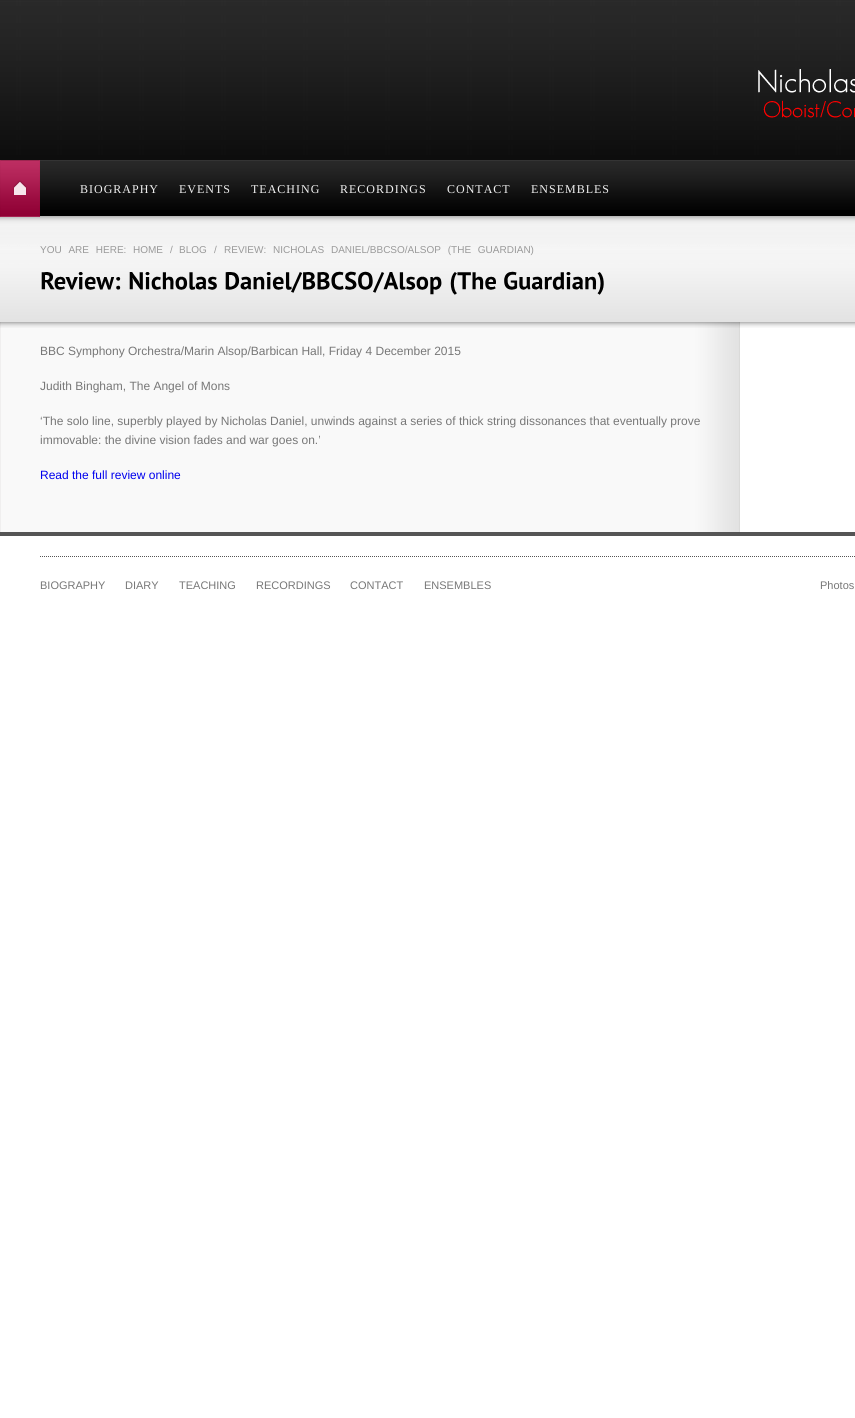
#include <cairo.h>
#include <math.h>
#include <stddef.h>


static void set_color(cairo_t *cr, unsigned color) {
    cairo_set_source_rgb(cr, (color >> 16) / 255.0, (color >> 8 & 255) / 255.0, (color & 255) / 255.0);
}

static void draw_text(cairo_t *cr, double x, double y, const char *s, const char *family, double size, int italic, int bold, unsigned color) {
    cairo_select_font_face(cr, family, italic ? CAIRO_FONT_SLANT_ITALIC : CAIRO_FONT_SLANT_NORMAL,
        bold ? CAIRO_FONT_WEIGHT_BOLD : CAIRO_FONT_WEIGHT_NORMAL);
    cairo_set_font_size(cr, size);
    set_color(cr, color);
    cairo_move_to(cr, x, y);
    cairo_show_text(cr, s);
}

static void draw_spaced(cairo_t *cr, double x, double y, const char *s, double letter, double word) {
    cairo_move_to(cr, x, y);
    while (*s) {
        char ch[5] = {0};
        int n = 0;
        do ch[n++] = *s++; while ((*s & 0xC0) == 0x80);
        cairo_show_text(cr, ch);
        cairo_rel_move_to(cr, letter + word * (*ch == ' '), 0);
    }
}

static void fill_rect(cairo_t *cr, double x, double y, double w, double h, unsigned color) {
    set_color(cr, color);
    cairo_rectangle(cr, x, y, w, h);
    cairo_fill(cr);
}

static void draw_image(cairo_t *cr, const char *path, double x, double y, double w, double h) {
    cairo_surface_t *image = cairo_image_surface_create_from_png(path);
    cairo_save(cr);
    cairo_set_source_surface(cr, image, x, y);
    cairo_rectangle(cr, x, y, w, h);
    cairo_fill(cr);
    cairo_restore(cr);
    cairo_surface_destroy(image);
}

int main(void) {
    cairo_surface_t *surface = cairo_image_surface_create(CAIRO_FORMAT_RGB24, 855, 1418);
    cairo_t *cr = cairo_create(surface);
    cairo_font_options_t *options = cairo_font_options_create();
    cairo_font_options_set_hint_metrics(options, CAIRO_HINT_METRICS_OFF);
    cairo_font_options_set_hint_style(options, CAIRO_HINT_STYLE_NONE);
    cairo_set_font_options(cr, options);
    cairo_set_miter_limit(cr, 4);
    set_color(cr, 0xFFFFFF);
    cairo_paint(cr);
    fill_rect(cr, 0, 0, 855, 160, 0x000000);
    draw_image(cr, "assets/img1.png", 0, 0, 855, 160);
    draw_image(cr, "assets/img2.png", 758, 69, 97, 49);
    fill_rect(cr, 0, 160, 40, 56, 0x000000);
    draw_image(cr, "assets/img6.png", 0, 216, 855, 106);
    cairo_set_source_rgba(cr, 0.761, 0, 0.275, 0.9);
    cairo_rectangle(cr, 0, 160, 40, 57);
    cairo_fill(cr);
    draw_image(cr, "assets/img3.png", 0, 160, 40, 57);
    fill_rect(cr, 40, 160, 815, 56, 0x000000);
    draw_image(cr, "assets/img4.png", 740, 160, 115, 50);
    draw_image(cr, "assets/img5.png", 40, 160, 700, 50);
    cairo_select_font_face(cr, "Liberation Serif", CAIRO_FONT_SLANT_NORMAL, CAIRO_FONT_WEIGHT_NORMAL);
    cairo_set_font_size(cr, 12);
    set_color(cr, 0xEFEFEF);
    draw_spaced(cr, 80, 193, "BIOGRAPHY", 1, 0);
    draw_spaced(cr, 179, 193, "EVENTS", 1, 0);
    draw_spaced(cr, 251, 193, "TEACHING", 1, 0);
    draw_spaced(cr, 340, 193, "RECORDINGS", 1, 0);
    draw_spaced(cr, 447, 193, "CONTACT", 1, 0);
    draw_spaced(cr, 531, 193, "ENSEMBLES", 1, 0);
    cairo_select_font_face(cr, "Liberation Sans", CAIRO_FONT_SLANT_NORMAL, CAIRO_FONT_WEIGHT_NORMAL);
    cairo_set_font_size(cr, 10);
    set_color(cr, 0x999999);
    draw_spaced(cr, 40, 253, "YOU ARE HERE:", 0, 4);
    draw_text(cr, 133, 253, "HOME", "Liberation Sans", 10, 0, 0, 0x999999);
    draw_text(cr, 170, 253, "/", "Liberation Sans", 10, 0, 0, 0x999999);
    draw_text(cr, 179, 253, "BLOG", "Liberation Sans", 10, 0, 0, 0x999999);
    draw_text(cr, 214, 253, "/", "Liberation Sans", 10, 0, 0, 0x999999);
    draw_spaced(cr, 224, 253, "REVIEW: NICHOLAS DANIEL/BBCSO/ALSOP (THE GUARDIAN)", 0, 4);
    draw_image(cr, "assets/img7.png", 41, 272, 80, 18);
    draw_image(cr, "assets/img8.png", 129, 272, 88, 18);
    draw_image(cr, "assets/img9.png", 225, 271, 217, 24);
    draw_image(cr, "assets/img10.png", 450, 272, 46, 23);
    draw_image(cr, "assets/img11.png", 504, 271, 100, 24);
    draw_image(cr, "assets/img12.png", 0, 322, 740, 210);
    draw_image(cr, "assets/img13.png", 740, 322, 115, 6);
    draw_image(cr, "assets/img14.png", 0, 322, 740, 6);
    draw_text(cr, 40, 355, "BBC Symphony Orchestra/Marin Alsop/Barbican Hall, Friday 4 December 2015", "Liberation Sans", 12, 0, 0, 0x777777);
    draw_text(cr, 40, 390, "Judith Bingham, The Angel of Mons", "Liberation Sans", 12, 0, 0, 0x777777);
    draw_text(cr, 40, 425, "‘The solo line, superbly played by Nicholas Daniel, unwinds against a series of thick string dissonances that eventually prove", "Liberation Sans", 12, 0, 0, 0x777777);
    draw_text(cr, 40, 444, "immovable: the divine vision fades and war goes on.’", "Liberation Sans", 12, 0, 0, 0x777777);
    draw_text(cr, 40, 479, "Read the full review online", "Liberation Sans", 12, 0, 0, 0x0000EE);
    fill_rect(cr, 0, 532, 855, 4, 0x555555);
    cairo_new_path(cr);
    cairo_move_to(cr, 40, 556.5);
    cairo_line_to(cr, 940, 556.5);
    cairo_set_line_width(cr, 1);
    cairo_set_dash(cr, (double[]){1, 1}, 2, 0);
    cairo_stroke(cr);
    draw_text(cr, 40, 589, "BIOGRAPHY", "Liberation Sans", 11, 0, 0, 0x777777);
    draw_text(cr, 125, 589, "DIARY", "Liberation Sans", 11, 0, 0, 0x777777);
    draw_text(cr, 179, 589, "TEACHING", "Liberation Sans", 11, 0, 0, 0x777777);
    draw_text(cr, 256, 589, "RECORDINGS", "Liberation Sans", 11, 0, 0, 0x777777);
    draw_text(cr, 350, 589, "CONTACT", "Liberation Sans", 11, 0, 0, 0x777777);
    draw_text(cr, 424, 589, "ENSEMBLES", "Liberation Sans", 11, 0, 0, 0x777777);
    draw_text(cr, 820, 589, "Photos", "Liberation Sans", 11, 0, 0, 0x777777);
    cairo_surface_write_to_png(surface, "output.png");
    cairo_font_options_destroy(options);
    cairo_destroy(cr);
    cairo_surface_destroy(surface);
    return 0;
}
